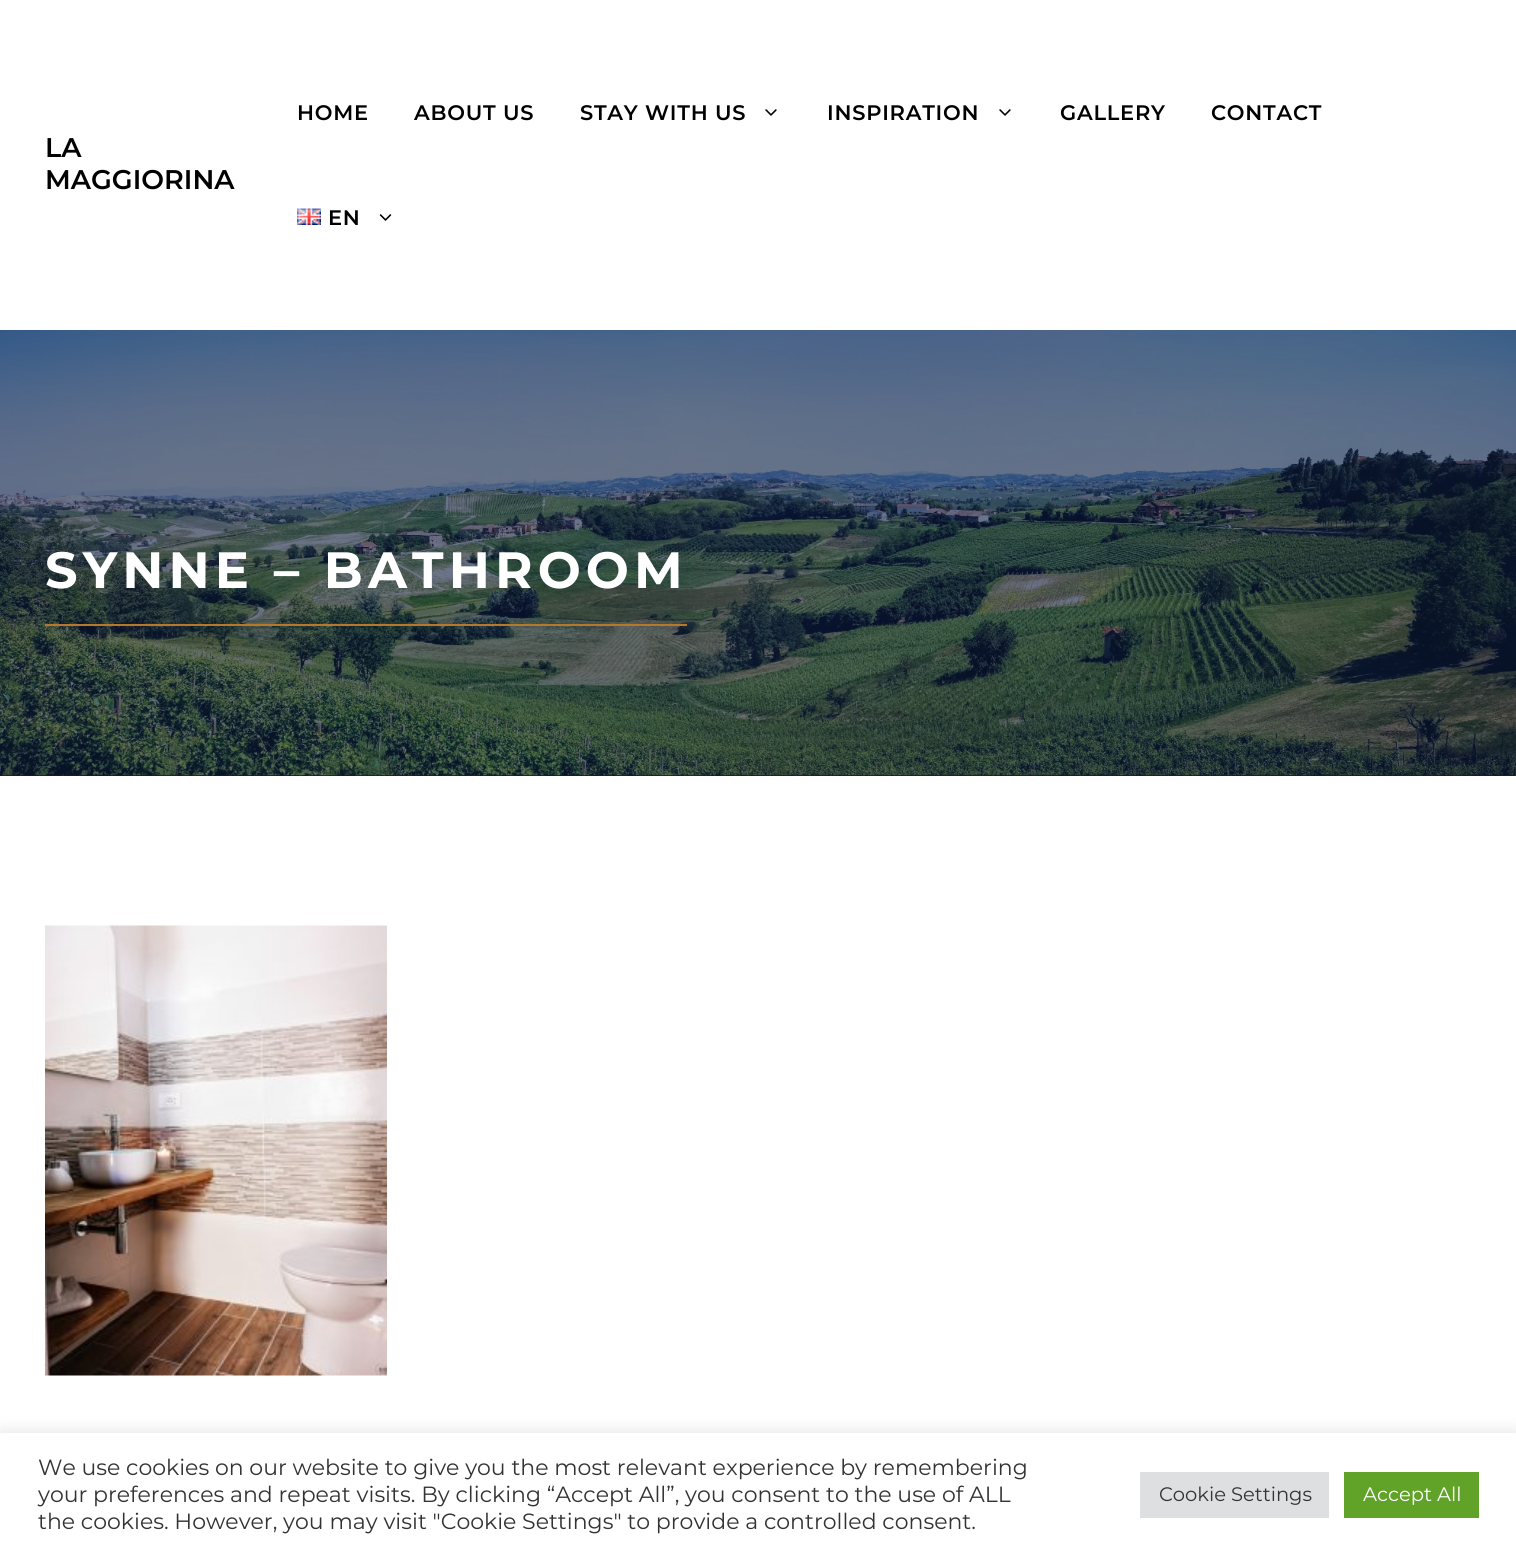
#include <cairo.h>
#include <math.h>
#include <stddef.h>


static void set_color(cairo_t *cr, unsigned color) {
    cairo_set_source_rgb(cr, (color >> 16) / 255.0, (color >> 8 & 255) / 255.0, (color & 255) / 255.0);
}

static void draw_text(cairo_t *cr, double x, double y, const char *s, const char *family, double size, int italic, int bold, unsigned color) {
    cairo_select_font_face(cr, family, italic ? CAIRO_FONT_SLANT_ITALIC : CAIRO_FONT_SLANT_NORMAL,
        bold ? CAIRO_FONT_WEIGHT_BOLD : CAIRO_FONT_WEIGHT_NORMAL);
    cairo_set_font_size(cr, size);
    set_color(cr, color);
    cairo_move_to(cr, x, y);
    cairo_show_text(cr, s);
}

static void draw_spaced(cairo_t *cr, double x, double y, const char *s, double letter, double word) {
    cairo_move_to(cr, x, y);
    while (*s) {
        char ch[5] = {0};
        int n = 0;
        do ch[n++] = *s++; while ((*s & 0xC0) == 0x80);
        cairo_show_text(cr, ch);
        cairo_rel_move_to(cr, letter + word * (*ch == ' '), 0);
    }
}

static void fill_rect(cairo_t *cr, double x, double y, double w, double h, unsigned color) {
    set_color(cr, color);
    cairo_rectangle(cr, x, y, w, h);
    cairo_fill(cr);
}

static void rounded_rect(cairo_t *cr, double x, double y, double w, double h, double r) {
    cairo_new_sub_path(cr);
    cairo_arc(cr, x + w - r, y + h - r, r, 0, M_PI / 2);
    cairo_arc(cr, x + r, y + h - r, r, M_PI / 2, M_PI);
    cairo_arc(cr, x + r, y + r, r, M_PI, 1.5 * M_PI);
    cairo_arc(cr, x + w - r, y + r, r, 1.5 * M_PI, 2 * M_PI);
    cairo_close_path(cr);
}

static void draw_shadow(cairo_t *cr, double x, double y, double w, double h, double r, double blur, double alpha) {
    cairo_push_group_with_content(cr, CAIRO_CONTENT_ALPHA);
    cairo_set_operator(cr, CAIRO_OPERATOR_SOURCE);
    for (int i = 15; i >= -15 && fmin(w, h) + blur * i / 3 > 0; i -= 2) {
        double e = blur * i / 6;
        cairo_set_source_rgba(cr, 0, 0, 0, alpha * erfc((i - 1) / 8.5) / 2);
        rounded_rect(cr, x - e, y - e, w + 2 * e, h + 2 * e, fmax(0, fmin(r + e + blur * .6, fmin(w, h) / 2 + e)));
        cairo_fill(cr);
    }
    cairo_pattern_t *soft = cairo_pop_group(cr);
    cairo_mask(cr, soft);
    cairo_pattern_destroy(soft);
}

static void draw_image(cairo_t *cr, const char *path, double x, double y, double w, double h) {
    cairo_surface_t *image = cairo_image_surface_create_from_png(path);
    cairo_save(cr);
    cairo_set_source_surface(cr, image, x, y);
    cairo_rectangle(cr, x, y, w, h);
    cairo_fill(cr);
    cairo_restore(cr);
    cairo_surface_destroy(image);
}

int main(void) {
    cairo_surface_t *surface = cairo_image_surface_create(CAIRO_FORMAT_RGB24, 1516, 1555);
    cairo_t *cr = cairo_create(surface);
    cairo_font_options_t *options = cairo_font_options_create();
    cairo_font_options_set_hint_metrics(options, CAIRO_HINT_METRICS_OFF);
    cairo_font_options_set_hint_style(options, CAIRO_HINT_STYLE_NONE);
    cairo_set_font_options(cr, options);
    cairo_set_miter_limit(cr, 4);
    set_color(cr, 0xFFFFFF);
    cairo_paint(cr);
    draw_text(cr, 45, 157, "LA", "Montserrat SemiBold", 27, 0, 0, 0x000000);
    draw_text(cr, 45, 189, "MAGGIORINA", "Montserrat SemiBold", 27, 0, 0, 0x000000);
    cairo_set_font_size(cr, 21);
    draw_spaced(cr, 297, 120, "HOME", 0.75, 0);
    draw_spaced(cr, 414, 120, "ABOUT US", 0.75, 0);
    draw_spaced(cr, 580, 120, "STAY WITH US", 0.75, 0);
    draw_image(cr, "assets/img1.png", 765, 109, 12, 7);
    draw_spaced(cr, 827, 120, "INSPIRATION", 0.75, 0);
    draw_image(cr, "assets/img1.png", 999, 109, 12, 7);
    draw_spaced(cr, 1060, 120, "GALLERY", 0.75, 0);
    draw_spaced(cr, 1211, 120, "CONTACT", 0.75, 0);
    draw_image(cr, "assets/img2.png", 297, 208, 24, 17);
    draw_spaced(cr, 328, 225, "EN", 0.75, 0);
    draw_image(cr, "assets/img3.png", 379, 214, 13, 7);
    fill_rect(cr, 0, 330, 1516, 446, 0x0C1D3D);
    draw_image(cr, "assets/img4.png", 0, 330, 1516, 446);
    fill_rect(cr, 45, 624, 642, 2, 0xB7782C);
    cairo_select_font_face(cr, "Montserrat", CAIRO_FONT_SLANT_NORMAL, CAIRO_FONT_WEIGHT_BOLD);
    cairo_set_font_size(cr, 51);
    set_color(cr, 0xFFFFFF);
    draw_spaced(cr, 45, 588, "SYNNE – BATHROOM", 5.1, 0);
    draw_image(cr, "assets/img5.png", 45, 925, 342, 451);
    set_color(cr, 0xACABAB);
    draw_shadow(cr, 0, 1431, 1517, 123, 0, 7.5, 0.3);
    fill_rect(cr, 0, 1433, 1516, 122, 0xFFFFFF);
    draw_text(cr, 38, 1475, "We use cookies on our website to give you the most relevant experience by remembering", "Montserrat", 22, 0, 0, 0x333333);
    draw_text(cr, 38, 1502, "your preferences and repeat visits. By clicking “Accept All”, you consent to the use of ALL", "Montserrat", 22, 0, 0, 0x333333);
    draw_text(cr, 38, 1529, "the cookies. However, you may visit \"Cookie Settings\" to provide a controlled consent.", "Montserrat", 22, 0, 0, 0x333333);
    fill_rect(cr, 1140, 1472, 189, 46, 0xDEDFE0);
    draw_text(cr, 1159, 1501, "Cookie Settings", "Montserrat", 19.5, 0, 0, 0x333333);
    fill_rect(cr, 1344, 1472, 135, 46, 0x61A229);
    draw_text(cr, 1363, 1501, "Accept All", "Montserrat", 19.5, 0, 0, 0xFFFFFF);
    cairo_surface_write_to_png(surface, "output.png");
    cairo_font_options_destroy(options);
    cairo_destroy(cr);
    cairo_surface_destroy(surface);
    return 0;
}
